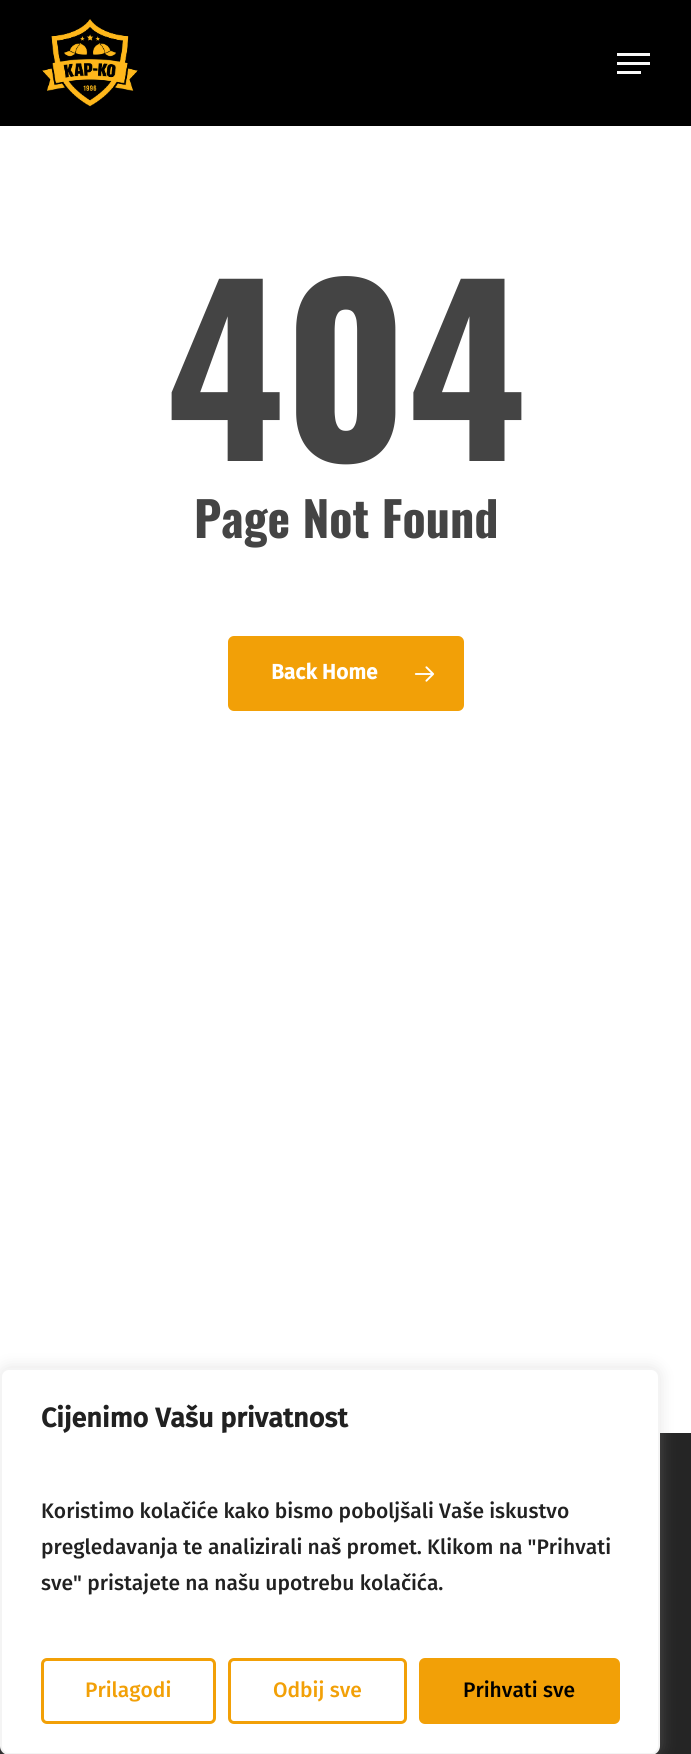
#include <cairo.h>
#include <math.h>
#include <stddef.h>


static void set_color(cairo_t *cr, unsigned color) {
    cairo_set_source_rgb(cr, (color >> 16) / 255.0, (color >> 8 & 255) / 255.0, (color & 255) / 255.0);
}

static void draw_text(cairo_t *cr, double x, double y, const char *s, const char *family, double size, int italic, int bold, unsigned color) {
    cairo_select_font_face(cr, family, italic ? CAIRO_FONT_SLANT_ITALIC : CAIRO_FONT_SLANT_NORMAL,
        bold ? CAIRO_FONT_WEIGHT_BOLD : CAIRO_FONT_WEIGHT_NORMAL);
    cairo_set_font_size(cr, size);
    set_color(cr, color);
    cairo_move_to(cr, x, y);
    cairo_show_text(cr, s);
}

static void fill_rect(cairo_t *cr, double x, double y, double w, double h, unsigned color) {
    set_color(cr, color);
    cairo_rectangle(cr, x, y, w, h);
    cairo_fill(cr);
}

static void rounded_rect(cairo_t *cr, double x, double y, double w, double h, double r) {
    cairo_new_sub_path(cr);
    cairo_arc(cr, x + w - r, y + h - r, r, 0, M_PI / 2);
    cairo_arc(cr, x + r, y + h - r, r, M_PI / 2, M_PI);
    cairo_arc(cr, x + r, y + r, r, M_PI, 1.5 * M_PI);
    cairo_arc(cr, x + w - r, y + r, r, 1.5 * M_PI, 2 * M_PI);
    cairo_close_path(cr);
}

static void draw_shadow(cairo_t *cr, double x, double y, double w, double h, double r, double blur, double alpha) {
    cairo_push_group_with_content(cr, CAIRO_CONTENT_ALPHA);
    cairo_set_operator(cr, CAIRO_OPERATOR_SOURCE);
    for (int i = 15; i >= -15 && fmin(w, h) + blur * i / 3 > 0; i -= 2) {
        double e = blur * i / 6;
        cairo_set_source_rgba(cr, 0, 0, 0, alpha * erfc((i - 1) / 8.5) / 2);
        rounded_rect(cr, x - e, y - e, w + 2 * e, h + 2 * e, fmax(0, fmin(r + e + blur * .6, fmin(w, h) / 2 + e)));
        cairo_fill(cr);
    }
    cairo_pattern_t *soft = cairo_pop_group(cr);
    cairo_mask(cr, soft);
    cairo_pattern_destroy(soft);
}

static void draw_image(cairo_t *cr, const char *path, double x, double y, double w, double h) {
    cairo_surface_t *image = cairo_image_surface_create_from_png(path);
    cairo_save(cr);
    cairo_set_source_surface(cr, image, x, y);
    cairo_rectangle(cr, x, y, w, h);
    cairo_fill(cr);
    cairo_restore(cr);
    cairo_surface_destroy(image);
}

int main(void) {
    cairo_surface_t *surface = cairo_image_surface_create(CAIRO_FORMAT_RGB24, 691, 1754);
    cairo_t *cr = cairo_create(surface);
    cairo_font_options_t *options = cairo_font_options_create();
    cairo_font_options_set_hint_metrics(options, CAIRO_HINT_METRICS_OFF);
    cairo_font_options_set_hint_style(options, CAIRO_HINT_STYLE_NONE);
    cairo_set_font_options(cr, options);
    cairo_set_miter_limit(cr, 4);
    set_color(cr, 0xFFFFFF);
    cairo_paint(cr);
    fill_rect(cr, 0, 0, 691, 126, 0x000000);
    draw_image(cr, "assets/img1.png", 42, 19, 96, 88);
    fill_rect(cr, 617, 53, 33, 3, 0xF9F9F9);
    fill_rect(cr, 617, 71, 24, 3, 0xF9F9F9);
    fill_rect(cr, 617, 62, 33, 3, 0xF9F9F9);
    draw_text(cr, 166, 461, "404", "Oswald", 225, 0, 1, 0x444444);
    draw_text(cr, 194, 538, "Page Not Found", "Oswald", 48, 0, 1, 0x444444);
    set_color(cr, 0xF2A007);
    rounded_rect(cr, 228, 636, 236, 75, 6);
    cairo_fill(cr);
    draw_text(cr, 271, 679, "Back Home", "Fira Sans", 21, 0, 1, 0xFFFFFF);
    draw_image(cr, "assets/img2.png", 414, 666, 21, 16);
    fill_rect(cr, 0, 1433, 691, 321, 0x252525);
    set_color(cr, 0xACABAB);
    draw_shadow(cr, 0, 1367, 660, 387, 9, 7.5, 0.3);
    set_color(cr, 0xFFFFFF);
    rounded_rect(cr, 1, 1369, 658, 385, 8);
    cairo_fill_preserve(cr);
    set_color(cr, 0xF4F4F4);
    cairo_stroke(cr);
    draw_text(cr, 41, 1427, "Cijenimo Vašu privatnost", "Fira Sans", 27, 0, 1, 0x212121);
    draw_text(cr, 41, 1518, "Koristimo kolačiće kako bismo poboljšali Vaše iskustvo", "Fira Sans Medium", 21, 0, 0, 0x212121);
    draw_text(cr, 41, 1554, "pregledavanja te analizirali naš promet. Klikom na \"Prihvati", "Fira Sans Medium", 21, 0, 0, 0x212121);
    draw_text(cr, 41, 1590, "sve\" pristajete na našu upotrebu kolačića.", "Fira Sans Medium", 21, 0, 0, 0x212121);
    rounded_rect(cr, 42.5, 1659.5, 172, 63, 4.5);
    set_color(cr, 0xF2A007);
    cairo_set_line_width(cr, 3);
    cairo_stroke(cr);
    draw_text(cr, 85, 1697, "Prilagodi", "Fira Sans Medium", 21, 0, 0, 0xF2A007);
    rounded_rect(cr, 229.5, 1659.5, 176, 63, 4.5);
    cairo_stroke(cr);
    draw_text(cr, 273, 1697, "Odbij sve", "Fira Sans Medium", 21, 0, 0, 0xF2A007);
    rounded_rect(cr, 420.5, 1659.5, 198, 63, 4.5);
    cairo_fill_preserve(cr);
    cairo_stroke(cr);
    draw_text(cr, 463, 1697, "Prihvati sve", "Fira Sans Medium", 21, 0, 0, 0x000000);
    cairo_surface_write_to_png(surface, "output.png");
    cairo_font_options_destroy(options);
    cairo_destroy(cr);
    cairo_surface_destroy(surface);
    return 0;
}
